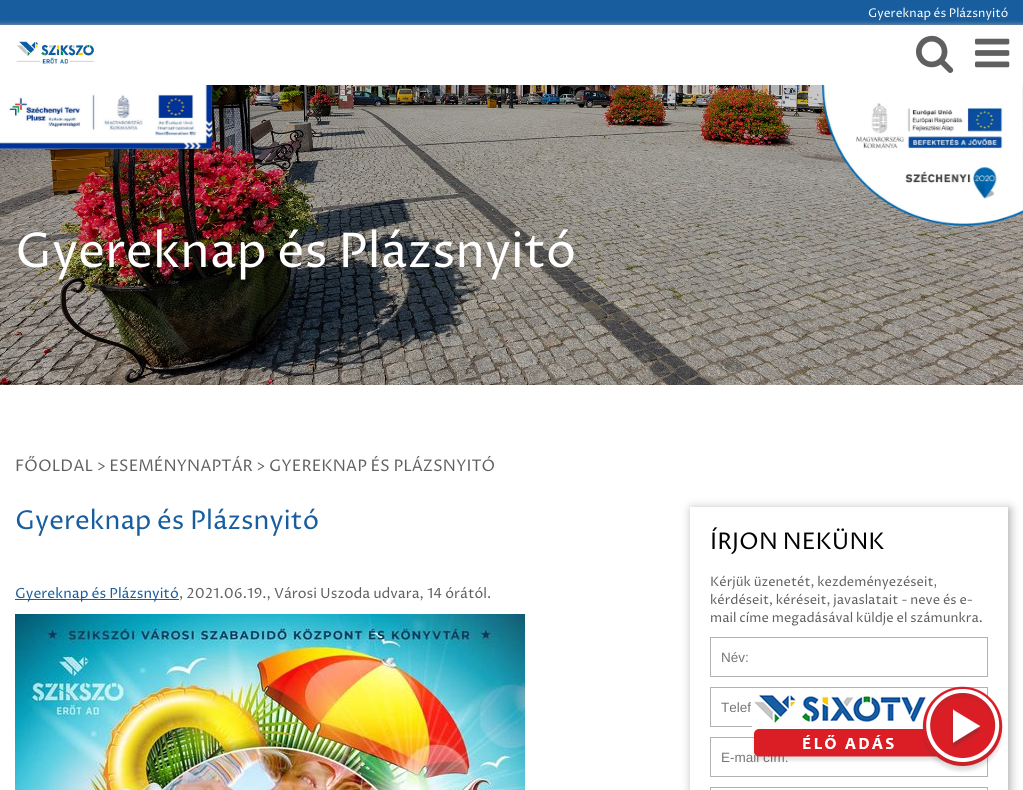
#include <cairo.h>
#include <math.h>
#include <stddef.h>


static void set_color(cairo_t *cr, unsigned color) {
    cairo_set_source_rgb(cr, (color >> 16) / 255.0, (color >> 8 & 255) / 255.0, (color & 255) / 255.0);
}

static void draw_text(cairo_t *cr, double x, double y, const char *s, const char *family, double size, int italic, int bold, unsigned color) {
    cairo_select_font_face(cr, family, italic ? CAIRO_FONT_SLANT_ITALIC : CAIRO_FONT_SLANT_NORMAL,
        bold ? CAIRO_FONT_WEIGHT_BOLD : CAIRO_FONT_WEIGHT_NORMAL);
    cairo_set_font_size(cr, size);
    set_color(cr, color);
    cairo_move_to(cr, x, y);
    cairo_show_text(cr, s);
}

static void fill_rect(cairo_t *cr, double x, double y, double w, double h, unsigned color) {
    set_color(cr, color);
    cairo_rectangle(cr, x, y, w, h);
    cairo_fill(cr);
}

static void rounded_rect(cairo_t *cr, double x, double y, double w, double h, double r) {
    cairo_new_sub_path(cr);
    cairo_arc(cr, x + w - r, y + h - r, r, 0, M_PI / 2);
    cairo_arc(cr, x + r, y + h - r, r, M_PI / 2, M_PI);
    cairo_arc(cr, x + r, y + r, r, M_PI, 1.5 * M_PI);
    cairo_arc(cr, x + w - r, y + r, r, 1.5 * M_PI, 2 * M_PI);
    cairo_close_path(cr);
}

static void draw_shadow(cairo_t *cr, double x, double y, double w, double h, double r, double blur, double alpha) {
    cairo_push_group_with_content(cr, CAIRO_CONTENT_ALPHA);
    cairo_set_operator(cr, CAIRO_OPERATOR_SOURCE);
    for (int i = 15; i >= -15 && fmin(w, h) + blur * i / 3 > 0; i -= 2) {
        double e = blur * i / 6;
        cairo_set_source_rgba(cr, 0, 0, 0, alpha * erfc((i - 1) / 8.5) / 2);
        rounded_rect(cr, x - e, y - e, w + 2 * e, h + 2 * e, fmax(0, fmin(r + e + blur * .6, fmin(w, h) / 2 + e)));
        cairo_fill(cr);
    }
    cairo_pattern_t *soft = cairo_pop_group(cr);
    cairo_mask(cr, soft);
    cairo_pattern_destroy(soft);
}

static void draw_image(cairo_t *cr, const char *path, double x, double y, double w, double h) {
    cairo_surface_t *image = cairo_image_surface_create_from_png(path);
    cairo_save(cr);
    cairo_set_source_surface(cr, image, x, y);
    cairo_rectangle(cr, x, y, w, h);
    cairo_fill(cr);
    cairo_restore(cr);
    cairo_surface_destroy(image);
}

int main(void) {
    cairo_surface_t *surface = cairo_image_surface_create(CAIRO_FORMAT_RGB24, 1023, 790);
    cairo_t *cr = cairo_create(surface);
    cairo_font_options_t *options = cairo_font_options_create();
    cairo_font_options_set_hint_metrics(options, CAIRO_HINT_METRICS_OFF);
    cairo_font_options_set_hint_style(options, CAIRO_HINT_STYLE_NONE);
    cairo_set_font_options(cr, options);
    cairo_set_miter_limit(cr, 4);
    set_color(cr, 0xFFFFFF);
    cairo_paint(cr);
    fill_rect(cr, 0, 0, 1023, 25, 0x185D9E);
    draw_text(cr, 868, 17, "Gyereknap és Plázsnyitó", "Proza Libre", 12, 0, 0, 0xFFFFFF);
    cairo_save(cr);
    cairo_rectangle(cr, 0, 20, 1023, 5);
    cairo_clip(cr);
    set_color(cr, 0xAAAAAA);
    draw_shadow(cr, 0, 25, 1023, 60, 0, 2.5, 1);
    cairo_restore(cr);
    draw_image(cr, "assets/img1.png", 16, 41, 78, 23);
    draw_image(cr, "assets/img2.png", 916, 35, 38, 38);
    draw_image(cr, "assets/img3.png", 975, 38, 35, 30);
    draw_image(cr, "assets/img6.png", 0, 85, 1023, 300);
    draw_image(cr, "assets/img4.png", 0, 85, 213, 64);
    draw_image(cr, "assets/img5.png", 822, 85, 201, 141);
    draw_text(cr, 15, 267, "Gyereknap és Plázsnyitó", "Proza Libre", 48, 0, 0, 0xFFFFFF);
    draw_text(cr, 15, 471, "FŐOLDAL > ESEMÉNYNAPTÁR > GYEREKNAP ÉS PLÁZSNYITÓ", "Proza Libre", 16, 0, 0, 0x606060);
    draw_text(cr, 15, 529, "Gyereknap és Plázsnyitó", "Proza Libre", 26, 0, 0, 0x185D9E);
    fill_rect(cr, 15, 599, 164, 1, 0x185D9E);
    draw_text(cr, 15, 598, "Gyereknap és Plázsnyitó", "Proza Libre", 14, 0, 0, 0x185D9E);
    draw_text(cr, 179, 598, ", 2021.06.19., Városi Uszoda udvara, 14 órától.", "Proza Libre", 14, 0, 0, 0x606060);
    draw_image(cr, "assets/img7.png", 15, 614, 510, 176);
    cairo_save(cr);
    cairo_set_fill_rule(cr, CAIRO_FILL_RULE_EVEN_ODD);
    cairo_new_path(cr);
    cairo_move_to(cr, 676, 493);
    cairo_line_to(cr, 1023, 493);
    cairo_line_to(cr, 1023, 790);
    cairo_line_to(cr, 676, 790);
    cairo_close_path(cr);
    cairo_move_to(cr, 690, 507);
    cairo_line_to(cr, 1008, 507);
    cairo_line_to(cr, 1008, 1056);
    cairo_line_to(cr, 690, 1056);
    cairo_close_path(cr);
    cairo_clip(cr);
    set_color(cr, 0xAAAAAA);
    draw_shadow(cr, 692, 509, 318, 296, 0, 5, 1);
    cairo_restore(cr);
    draw_text(cr, 710, 549, "ÍRJON NEKÜNK", "Proza Libre", 23, 0, 0, 0x000000);
    draw_text(cr, 710, 586, "Kérjük üzenetét, kezdeményezéseit,", "Proza Libre", 13, 0, 0, 0x606060);
    draw_text(cr, 710, 604, "kérdéseit, kéréseit, javaslatait - neve és e-", "Proza Libre", 13, 0, 0, 0x606060);
    draw_text(cr, 710, 622, "mail címe megadásával küldje el számunkra.", "Proza Libre", 13, 0, 0, 0x606060);
    cairo_rectangle(cr, 710.5, 637.5, 277, 39);
    set_color(cr, 0xB2B2B2);
    cairo_set_line_width(cr, 1);
    cairo_stroke(cr);
    draw_text(cr, 721, 662, "Név:", "Liberation Sans", 13.5, 0, 0, 0x757575);
    cairo_rectangle(cr, 710.5, 687.5, 277, 39);
    set_color(cr, 0xB2B2B2);
    cairo_stroke(cr);
    draw_text(cr, 721, 712, "Telef", "Liberation Sans", 13.5, 0, 0, 0x757575);
    cairo_rectangle(cr, 710.5, 737.5, 277, 39);
    set_color(cr, 0xB2B2B2);
    cairo_stroke(cr);
    draw_text(cr, 721, 762, "E-mail cím:", "Liberation Sans", 13.5, 0, 0, 0x757575);
    cairo_rectangle(cr, 710.5, 787.5, 277, 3);
    set_color(cr, 0xB2B2B2);
    cairo_stroke(cr);
    draw_image(cr, "assets/img8.png", 752, 686, 252, 87);
    cairo_surface_write_to_png(surface, "output.png");
    cairo_font_options_destroy(options);
    cairo_destroy(cr);
    cairo_surface_destroy(surface);
    return 0;
}
